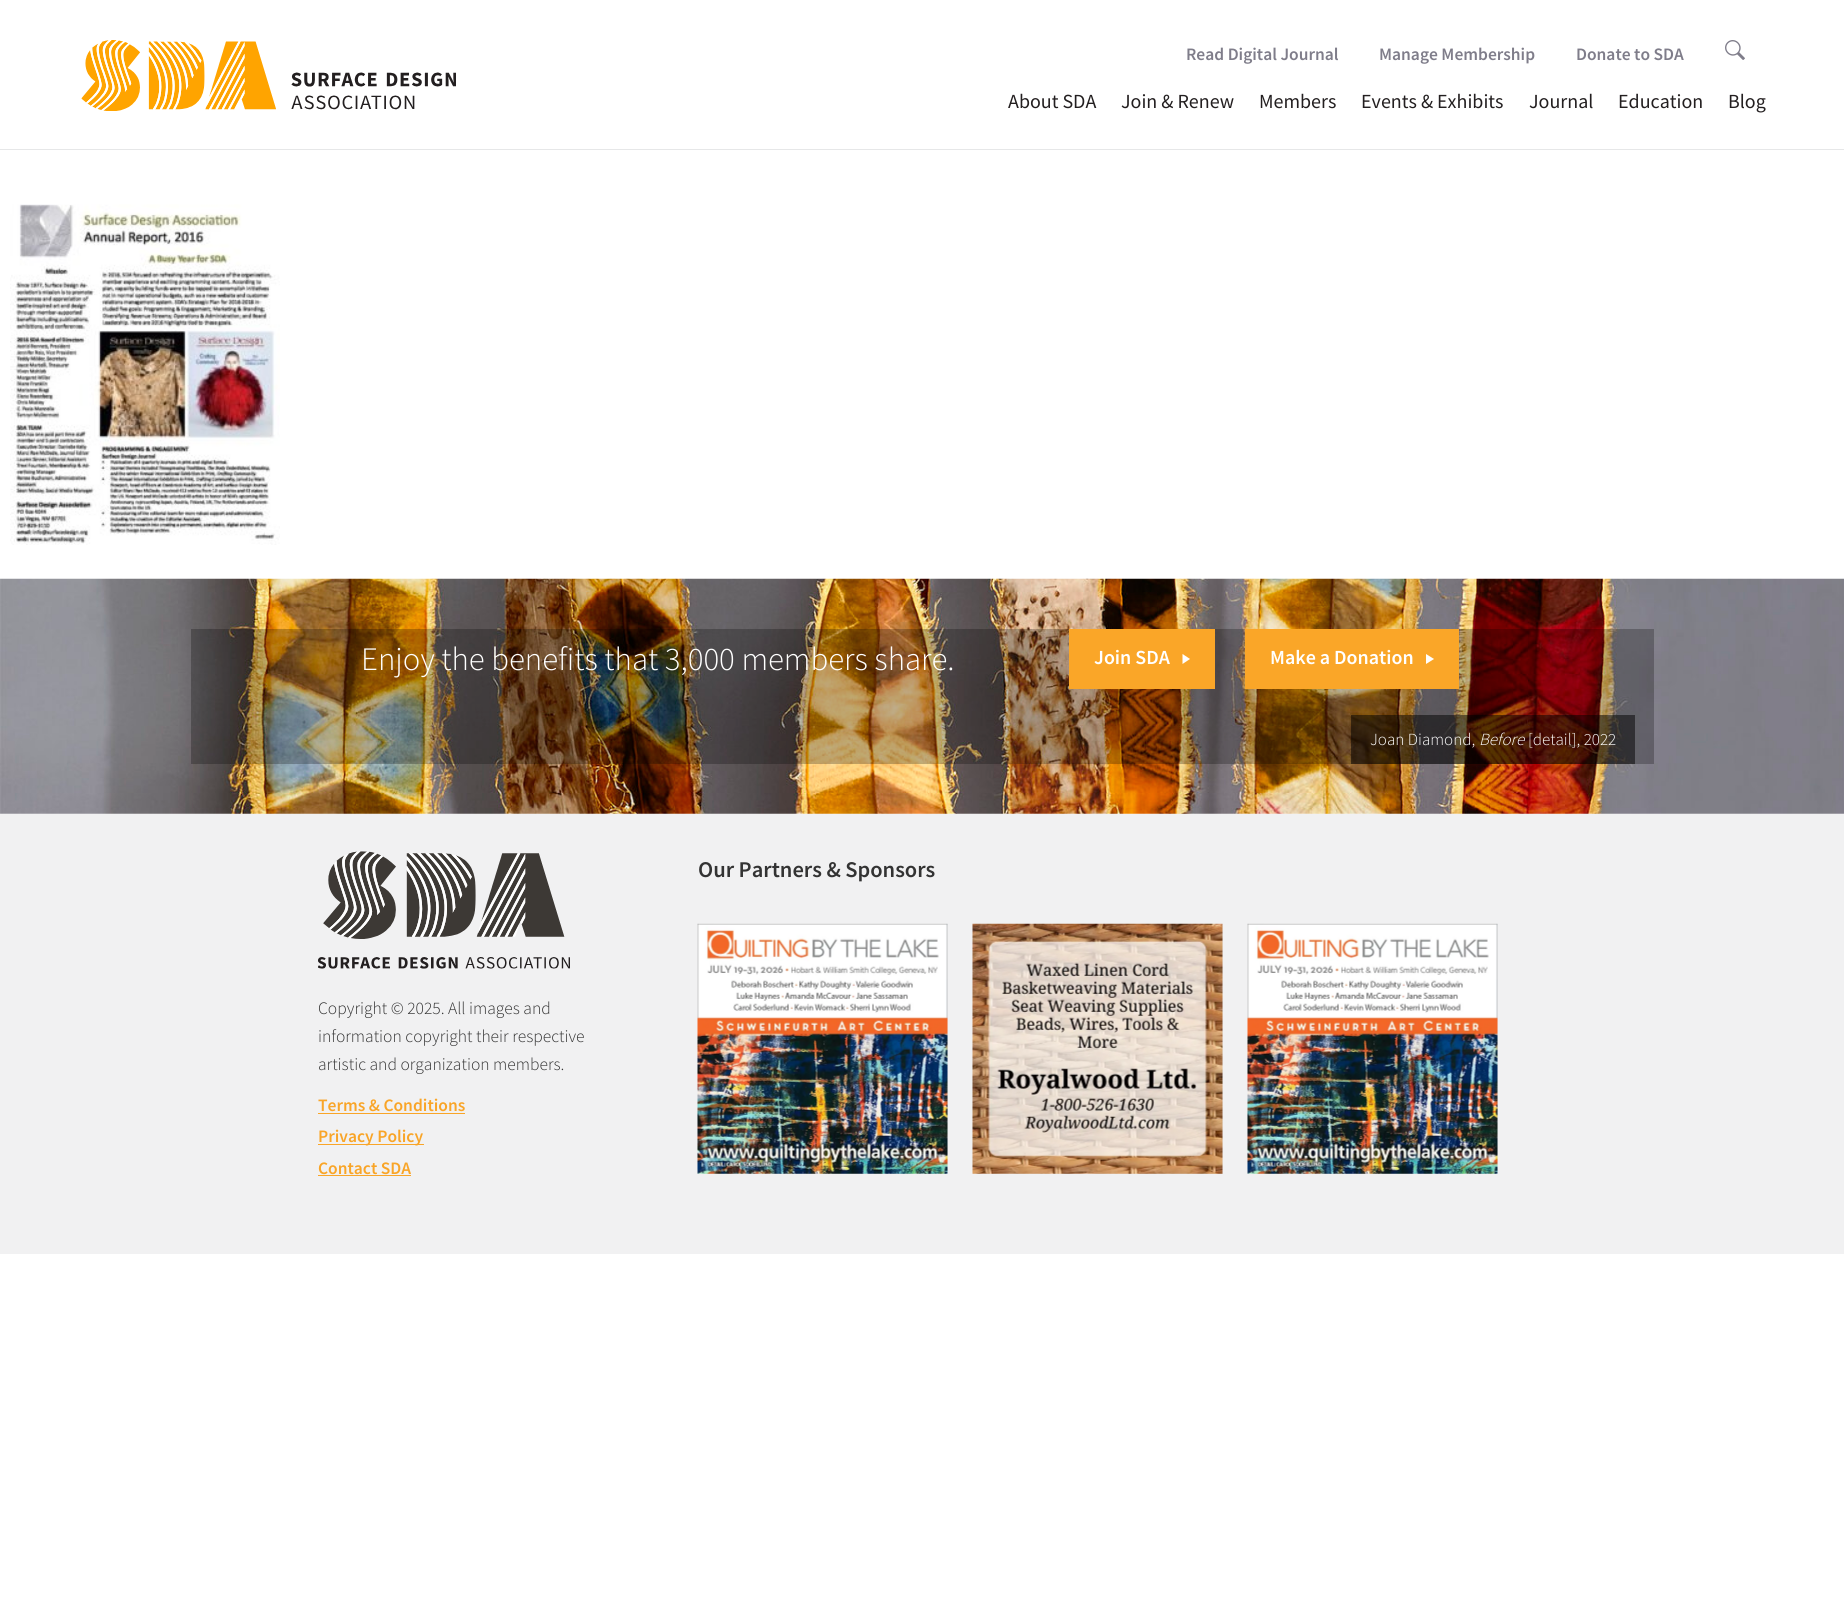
#include <cairo.h>
#include <math.h>
#include <stddef.h>


static void set_color(cairo_t *cr, unsigned color) {
    cairo_set_source_rgb(cr, (color >> 16) / 255.0, (color >> 8 & 255) / 255.0, (color & 255) / 255.0);
}

static void draw_text(cairo_t *cr, double x, double y, const char *s, const char *family, double size, int italic, int bold, unsigned color) {
    cairo_select_font_face(cr, family, italic ? CAIRO_FONT_SLANT_ITALIC : CAIRO_FONT_SLANT_NORMAL,
        bold ? CAIRO_FONT_WEIGHT_BOLD : CAIRO_FONT_WEIGHT_NORMAL);
    cairo_set_font_size(cr, size);
    set_color(cr, color);
    cairo_move_to(cr, x, y);
    cairo_show_text(cr, s);
}

static void fill_rect(cairo_t *cr, double x, double y, double w, double h, unsigned color) {
    set_color(cr, color);
    cairo_rectangle(cr, x, y, w, h);
    cairo_fill(cr);
}

static void draw_image(cairo_t *cr, const char *path, double x, double y, double w, double h) {
    cairo_surface_t *image = cairo_image_surface_create_from_png(path);
    cairo_save(cr);
    cairo_set_source_surface(cr, image, x, y);
    cairo_rectangle(cr, x, y, w, h);
    cairo_fill(cr);
    cairo_restore(cr);
    cairo_surface_destroy(image);
}

int main(void) {
    cairo_surface_t *surface = cairo_image_surface_create(CAIRO_FORMAT_RGB24, 1844, 1598);
    cairo_t *cr = cairo_create(surface);
    cairo_font_options_t *options = cairo_font_options_create();
    cairo_font_options_set_hint_metrics(options, CAIRO_HINT_METRICS_OFF);
    cairo_font_options_set_hint_style(options, CAIRO_HINT_STYLE_NONE);
    cairo_set_font_options(cr, options);
    cairo_set_miter_limit(cr, 4);
    set_color(cr, 0xFFFFFF);
    cairo_paint(cr);
    fill_rect(cr, 0, 149, 1844, 1, 0xE6E7E8);
    draw_image(cr, "assets/img1.png", 81, 40, 375, 71);
    draw_text(cr, 1186, 60, "Read Digital Journal", "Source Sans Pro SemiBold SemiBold", 17.5, 0, 0, 0x7F7D8A);
    draw_text(cr, 1379, 60, "Manage Membership", "Source Sans Pro SemiBold SemiBold", 17.5, 0, 0, 0x7F7D8A);
    draw_text(cr, 1576, 60, "Donate to SDA", "Source Sans Pro SemiBold SemiBold", 17.5, 0, 0, 0x7F7D8A);
    draw_image(cr, "assets/img2.png", 1725, 40, 20, 20);
    draw_text(cr, 1008, 108, "About SDA", "Source Sans Pro", 20, 0, 0, 0x231F20);
    draw_text(cr, 1121, 108, "Join & Renew", "Source Sans Pro", 20, 0, 0, 0x231F20);
    draw_text(cr, 1259, 108, "Members", "Source Sans Pro", 20, 0, 0, 0x231F20);
    draw_text(cr, 1361, 108, "Events & Exhibits", "Source Sans Pro", 20, 0, 0, 0x231F20);
    draw_text(cr, 1529, 108, "Journal", "Source Sans Pro", 20, 0, 0, 0x231F20);
    draw_text(cr, 1618, 108, "Education", "Source Sans Pro", 20, 0, 0, 0x231F20);
    draw_text(cr, 1728, 108, "Blog", "Source Sans Pro", 20, 0, 0, 0x231F20);
    draw_image(cr, "assets/img3.png", 10, 204, 270, 341);
    draw_image(cr, "assets/img4.png", 0, 578, 1844, 236);
    cairo_set_source_rgba(cr, 0, 0, 0, 0.25);
    cairo_rectangle(cr, 191, 629, 1463, 135);
    cairo_fill(cr);
    draw_text(cr, 361, 670, "Enjoy the benefits that 3,000 members share.", "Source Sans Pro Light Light", 32.8, 0, 0, 0xFFFFFF);
    fill_rect(cr, 1069, 629, 146, 60, 0xFAA628);
    draw_text(cr, 1094, 664, "Join SDA", "Source Sans Pro SemiBold SemiBold", 20, 0, 0, 0xFFFFFF);
    cairo_new_path(cr);
    cairo_move_to(cr, 1182.5, 664);
    cairo_line_to(cr, 1182.5, 654);
    cairo_line_to(cr, 1190, 659);
    cairo_close_path(cr);
    cairo_fill(cr);
    fill_rect(cr, 1245, 629, 214, 60, 0xFAA628);
    draw_text(cr, 1270, 664, "Make a Donation", "Source Sans Pro SemiBold SemiBold", 20, 0, 0, 0xFFFFFF);
    cairo_new_path(cr);
    cairo_move_to(cr, 1426, 664);
    cairo_line_to(cr, 1426, 654);
    cairo_line_to(cr, 1434, 659);
    cairo_close_path(cr);
    cairo_fill(cr);
    cairo_set_source_rgba(cr, 0, 0, 0, 0.5);
    cairo_rectangle(cr, 1351, 715, 284, 49);
    cairo_fill(cr);
    draw_text(cr, 1370, 745, "Joan Diamond,", "Source Sans Pro Light Light", 17, 0, 0, 0xFFFFFF);
    draw_text(cr, 1479, 745, "Before", "Source Sans Pro Light Light", 17, 1, 0, 0xFFFFFF);
    draw_text(cr, 1528, 745, "[detail], 2022", "Source Sans Pro Light Light", 17, 0, 0, 0xFFFFFF);
    fill_rect(cr, 0, 814, 1844, 440, 0xF1F1F2);
    draw_text(cr, 698, 877, "Our Partners & Sponsors", "Source Sans Pro SemiBold SemiBold", 22.5, 0, 0, 0x333333);
    fill_rect(cr, 698, 924, 250, 250, 0xE6E7E8);
    draw_image(cr, "assets/img5.png", 697, 923, 251, 251);
    fill_rect(cr, 973, 924, 250, 250, 0xE6E7E8);
    draw_image(cr, "assets/img6.png", 972, 923, 251, 251);
    fill_rect(cr, 1248, 924, 250, 250, 0xE6E7E8);
    draw_image(cr, "assets/img5.png", 1247, 923, 251, 251);
    draw_image(cr, "assets/img7.png", 318, 851, 252, 118);
    draw_text(cr, 318, 1014, "Copyright © 2025. All images and", "Source Sans Pro Light Light", 17.5, 0, 0, 0x333333);
    draw_text(cr, 318, 1042, "information copyright their respective", "Source Sans Pro Light Light", 17.5, 0, 0, 0x333333);
    draw_text(cr, 318, 1070, "artistic and organization members.", "Source Sans Pro Light Light", 17.5, 0, 0, 0x333333);
    draw_text(cr, 318, 1111, "Terms & Conditions", "Source Sans Pro SemiBold SemiBold", 17.5, 0, 0, 0xF9A528);
    fill_rect(cr, 318, 1113, 147, 1, 0xF9A528);
    fill_rect(cr, 318, 1144, 106, 1, 0xF9A528);
    draw_text(cr, 318, 1142, "Privacy Policy", "Source Sans Pro SemiBold SemiBold", 17.5, 0, 0, 0xF9A528);
    draw_text(cr, 318, 1174, "Contact SDA", "Source Sans Pro SemiBold SemiBold", 17.5, 0, 0, 0xF9A528);
    fill_rect(cr, 318, 1175, 93, 1, 0xF9A528);
    cairo_surface_write_to_png(surface, "output.png");
    cairo_font_options_destroy(options);
    cairo_destroy(cr);
    cairo_surface_destroy(surface);
    return 0;
}
